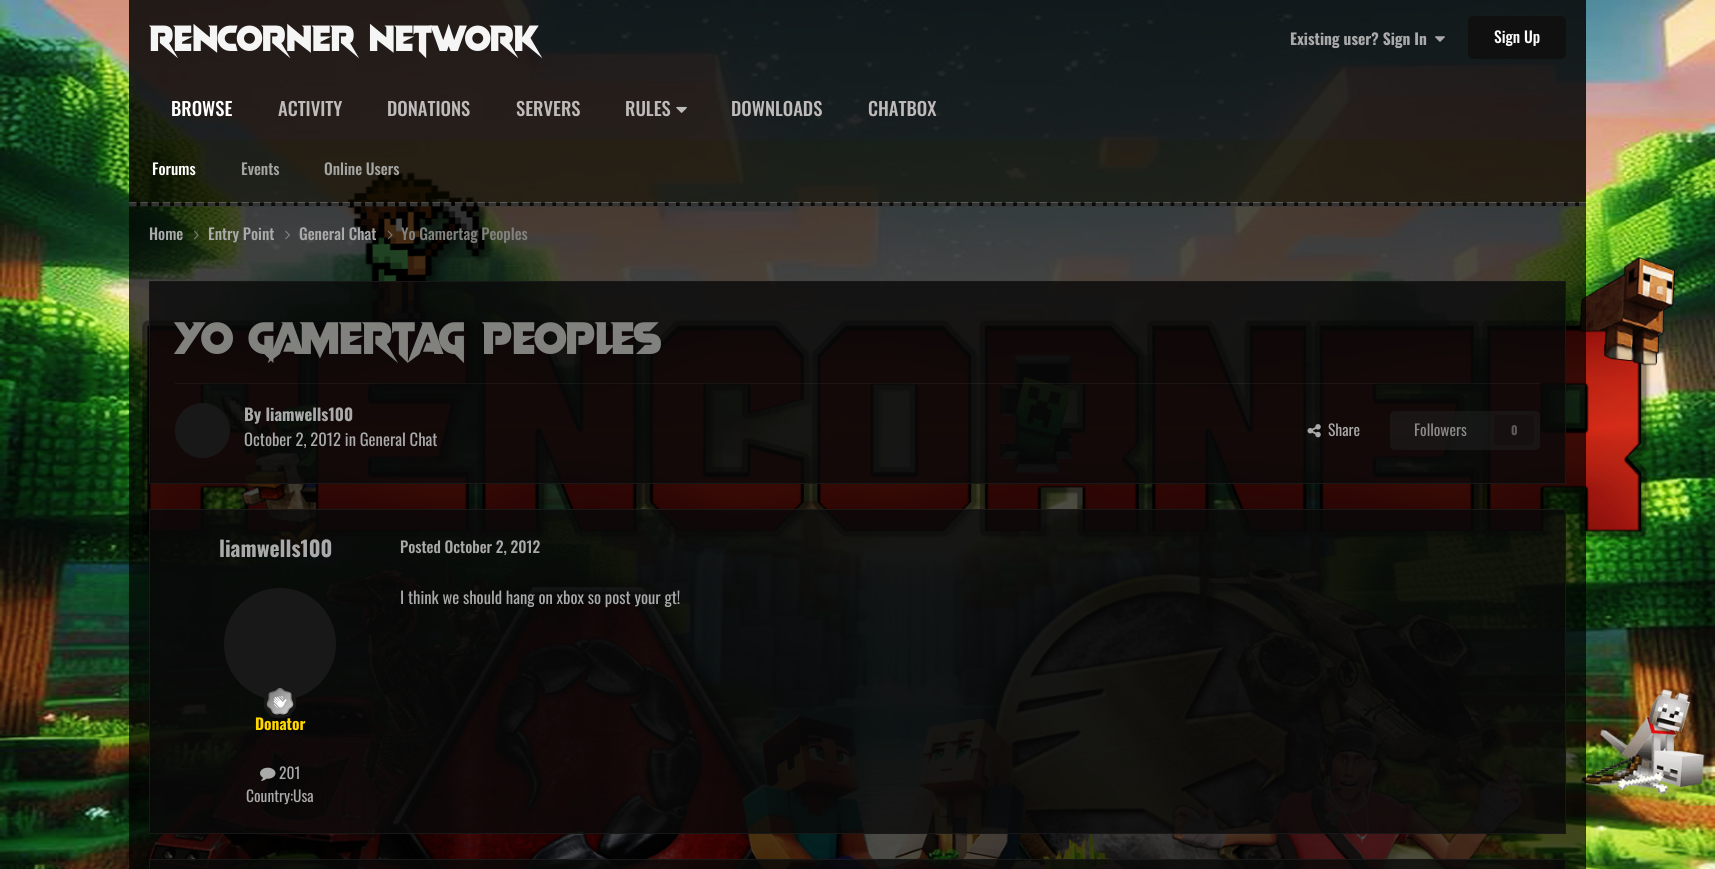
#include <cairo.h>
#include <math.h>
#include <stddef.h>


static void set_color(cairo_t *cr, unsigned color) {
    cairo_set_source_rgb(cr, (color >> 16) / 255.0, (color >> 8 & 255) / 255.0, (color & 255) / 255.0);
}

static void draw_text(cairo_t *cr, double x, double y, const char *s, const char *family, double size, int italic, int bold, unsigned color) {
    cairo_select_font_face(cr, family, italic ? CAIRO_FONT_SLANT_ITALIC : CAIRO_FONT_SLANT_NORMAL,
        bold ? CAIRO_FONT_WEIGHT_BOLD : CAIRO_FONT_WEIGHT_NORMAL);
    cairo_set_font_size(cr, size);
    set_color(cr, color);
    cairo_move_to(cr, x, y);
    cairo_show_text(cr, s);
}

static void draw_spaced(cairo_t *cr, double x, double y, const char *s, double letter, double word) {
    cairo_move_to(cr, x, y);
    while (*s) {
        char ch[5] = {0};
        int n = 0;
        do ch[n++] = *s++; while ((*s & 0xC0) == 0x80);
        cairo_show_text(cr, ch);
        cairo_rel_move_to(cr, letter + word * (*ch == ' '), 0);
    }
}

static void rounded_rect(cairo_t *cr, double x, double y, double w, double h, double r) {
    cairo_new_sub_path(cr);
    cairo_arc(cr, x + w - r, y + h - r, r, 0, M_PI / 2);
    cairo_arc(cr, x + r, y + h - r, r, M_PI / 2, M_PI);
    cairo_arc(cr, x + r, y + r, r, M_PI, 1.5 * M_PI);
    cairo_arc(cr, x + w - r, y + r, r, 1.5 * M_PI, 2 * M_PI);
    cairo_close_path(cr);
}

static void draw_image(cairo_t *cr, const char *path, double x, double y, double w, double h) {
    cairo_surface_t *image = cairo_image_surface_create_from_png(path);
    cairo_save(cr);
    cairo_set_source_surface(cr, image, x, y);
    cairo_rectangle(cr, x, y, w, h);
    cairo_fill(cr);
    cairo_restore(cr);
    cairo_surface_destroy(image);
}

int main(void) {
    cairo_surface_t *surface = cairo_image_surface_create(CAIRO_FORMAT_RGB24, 1715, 869);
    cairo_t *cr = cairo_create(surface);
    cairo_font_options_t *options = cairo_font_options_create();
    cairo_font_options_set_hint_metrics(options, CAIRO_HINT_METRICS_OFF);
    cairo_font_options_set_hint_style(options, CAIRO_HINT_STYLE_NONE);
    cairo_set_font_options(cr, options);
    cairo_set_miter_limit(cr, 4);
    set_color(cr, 0xFFFFFF);
    cairo_paint(cr);
    draw_image(cr, "assets/img1.png", 0, 0, 1715, 869);
    cairo_set_source_rgba(cr, 0.035, 0.035, 0.035, 0.87);
    cairo_rectangle(cr, 129, 0, 1457, 75);
    cairo_fill(cr);
    cairo_set_source_rgba(cr, 0, 0, 0, 0.1);
    cairo_rectangle(cr, 1585, 0, 1, 75);
    cairo_fill(cr);
    cairo_rectangle(cr, 129, 0, 1, 75);
    cairo_fill(cr);
    cairo_select_font_face(cr, "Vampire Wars", CAIRO_FONT_SLANT_NORMAL, CAIRO_FONT_WEIGHT_NORMAL);
    cairo_set_font_size(cr, 37.25);
    set_color(cr, 0xF5F5F5);
    draw_spaced(cr, 149, 51, "RenCorner Network", -0.6, 0);
    draw_text(cr, 1290, 45, "Existing user? Sign In", "Oswald", 15.5, 0, 1, 0xAAAAAA);
    draw_image(cr, "assets/img2.png", 1435, 36, 10, 6);
    set_color(cr, 0x101010);
    rounded_rect(cr, 1468, 16, 98, 43, 5);
    cairo_fill(cr);
    draw_text(cr, 1494, 43, "Sign Up", "Oswald Medium", 15.5, 0, 0, 0xFFFFFF);
    cairo_set_source_rgba(cr, 0.035, 0.035, 0.035, 0.87);
    cairo_rectangle(cr, 129, 75, 1457, 65);
    cairo_fill(cr);
    cairo_set_source_rgba(cr, 0, 0, 0, 0.1);
    cairo_rectangle(cr, 1585, 75, 1, 65);
    cairo_fill(cr);
    cairo_rectangle(cr, 129, 75, 1, 65);
    cairo_fill(cr);
    draw_text(cr, 171, 116, "BROWSE", "Oswald Medium", 18.5, 0, 0, 0xFFFFFF);
    cairo_set_source_rgba(cr, 0.035, 0.035, 0, 0.87);
    cairo_rectangle(cr, 129, 140, 1457, 66);
    cairo_fill(cr);
    draw_text(cr, 152, 175, "Forums", "Oswald Medium", 15.5, 0, 0, 0xFFFFFF);
    draw_text(cr, 241, 175, "Events", "Oswald Medium", 15.5, 0, 0, 0xA5A6A4);
    draw_text(cr, 324, 175, "Online Users", "Oswald Medium", 15.5, 0, 0, 0xA5A6A4);
    draw_text(cr, 278, 116, "ACTIVITY", "Oswald Medium", 18.5, 0, 0, 0xBEBBBA);
    draw_text(cr, 387, 116, "DONATIONS", "Oswald Medium", 18.5, 0, 0, 0xBEBBBA);
    draw_text(cr, 516, 116, "SERVERS", "Oswald Medium", 18.5, 0, 0, 0xBEBBBA);
    draw_text(cr, 625, 116, "RULES", "Oswald Medium", 18.5, 0, 0, 0xBEBBBA);
    draw_image(cr, "assets/img3.png", 676, 106, 11, 7);
    draw_text(cr, 731, 116, "DOWNLOADS", "Oswald Medium", 18.5, 0, 0, 0xBEBBBA);
    draw_text(cr, 868, 116, "CHATBOX", "Oswald Medium", 18.5, 0, 0, 0xBEBBBA);
    cairo_new_path(cr);
    cairo_move_to(cr, 129, 204.5);
    cairo_line_to(cr, 1586, 204.5);
    set_color(cr, 0xAAAAAA);
    cairo_set_line_width(cr, 3.8);
    cairo_set_dash(cr, (double[]){7.5, 3.74}, 2, 0);
    cairo_stroke(cr);
    cairo_set_source_rgba(cr, 0, 0, 0, 0.7);
    cairo_rectangle(cr, 129, 203, 1457, 666);
    cairo_fill(cr);
    cairo_set_source_rgba(cr, 0, 0, 0, 0.1);
    cairo_rectangle(cr, 1585, 203, 1, 666);
    cairo_fill(cr);
    cairo_rectangle(cr, 129, 203, 1, 633);
    cairo_fill(cr);
    draw_text(cr, 149, 240, "Home", "Oswald Medium", 15.5, 0, 0, 0xAAAAAA);
    draw_image(cr, "assets/img4.png", 194, 230, 5, 10);
    draw_text(cr, 208, 240, "Entry Point", "Oswald Medium", 15.5, 0, 0, 0xAAAAAA);
    draw_image(cr, "assets/img5.png", 285, 230, 5, 10);
    draw_text(cr, 299, 240, "General Chat", "Oswald Medium", 15.5, 0, 0, 0xAAAAAA);
    draw_image(cr, "assets/img6.png", 387, 230, 6, 10);
    draw_text(cr, 401, 240, "Yo Gamertag Peoples", "Oswald Medium", 15.5, 0, 0, 0x81817E);
    cairo_set_source_rgba(cr, 0.035, 0.035, 0.035, 0.8);
    cairo_rectangle(cr, 149.5, 281.5, 1416, 202);
    cairo_fill_preserve(cr);
    set_color(cr, 0x181818);
    cairo_set_line_width(cr, 1);
    cairo_set_dash(cr, NULL, 0, 0);
    cairo_stroke(cr);
    cairo_select_font_face(cr, "Vampire Wars", CAIRO_FONT_SLANT_NORMAL, CAIRO_FONT_WEIGHT_NORMAL);
    cairo_set_font_size(cr, 46.5);
    set_color(cr, 0x81817E);
    draw_spaced(cr, 175, 354, "Yo Gamertag Peoples", -0.9, 0);
    cairo_set_source_rgba(cr, 0.667, 0.667, 0.667, 0.08);
    cairo_rectangle(cr, 175, 383, 1365, 1);
    cairo_fill(cr);
    set_color(cr, 0x181818);
    cairo_arc(cr, 202.5, 430.5, 27.5, 0, 2 * M_PI);
    cairo_fill(cr);
    draw_text(cr, 244, 421, "By liamwells100", "Oswald", 16.6, 0, 1, 0xAAAAAA);
    draw_text(cr, 244, 446, "October 2, 2012 in General Chat", "Oswald", 16.6, 0, 0, 0xAAAAAA);
    draw_image(cr, "assets/img7.png", 1307, 424, 14, 14);
    draw_text(cr, 1328, 436, "Share", "Oswald", 15.5, 0, 0, 0xAAAAAA);
    cairo_set_source_rgba(cr, 0.133, 0.133, 0.133, 0.5);
    rounded_rect(cr, 1390, 411, 150, 39, 5);
    cairo_fill(cr);
    draw_text(cr, 1414, 436, "Followers", "Oswald", 15.5, 0, 0, 0x8C8B8A);
    set_color(cr, 0x161110);
    rounded_rect(cr, 1494, 415, 40, 30, 5);
    cairo_fill(cr);
    draw_text(cr, 1511, 435, "0", "Oswald", 12, 0, 1, 0x5F5A59);
    cairo_set_source_rgba(cr, 0.035, 0.035, 0.035, 0.8);
    cairo_rectangle(cr, 149.5, 509.5, 1416, 324);
    cairo_fill_preserve(cr);
    set_color(cr, 0x181818);
    cairo_stroke(cr);
    draw_text(cr, 219, 557, "liamwells100", "Oswald", 21.5, 0, 1, 0xAAAAAA);
    set_color(cr, 0x181818);
    cairo_new_path(cr);
    cairo_arc(cr, 280, 644, 56, 0, 2 * M_PI);
    cairo_fill(cr);
    draw_text(cr, 255, 730, "Donator", "Oswald", 15.5, 0, 1, 0xFFD700);
    rounded_rect(cr, 265.5, 686.5, 29, 30, 14.5);
    set_color(cr, 0x181818);
    cairo_set_line_width(cr, 3);
    cairo_stroke(cr);
    draw_image(cr, "assets/img8.png", 264, 685, 32, 33);
    draw_image(cr, "assets/img9.png", 260, 767, 16, 14);
    draw_text(cr, 279, 779, "201", "Oswald", 15.5, 0, 0, 0xAAAAAA);
    draw_text(cr, 246, 802, "Country:Usa", "Oswald", 15.5, 0, 0, 0xAAAAAA);
    draw_text(cr, 400, 553, "Posted October 2, 2012", "Oswald Medium", 15.5, 0, 0, 0xAAAAAA);
    draw_text(cr, 400, 604, "I think we should hang on xbox so post your gt!", "Oswald", 16.6, 0, 0, 0xAAAAAA);
    cairo_set_source_rgba(cr, 0.035, 0.035, 0.035, 0.8);
    cairo_rectangle(cr, 149.5, 859.5, 1416, 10);
    cairo_fill_preserve(cr);
    set_color(cr, 0x181818);
    cairo_set_line_width(cr, 1);
    cairo_stroke(cr);
    cairo_surface_write_to_png(surface, "output.png");
    cairo_font_options_destroy(options);
    cairo_destroy(cr);
    cairo_surface_destroy(surface);
    return 0;
}
